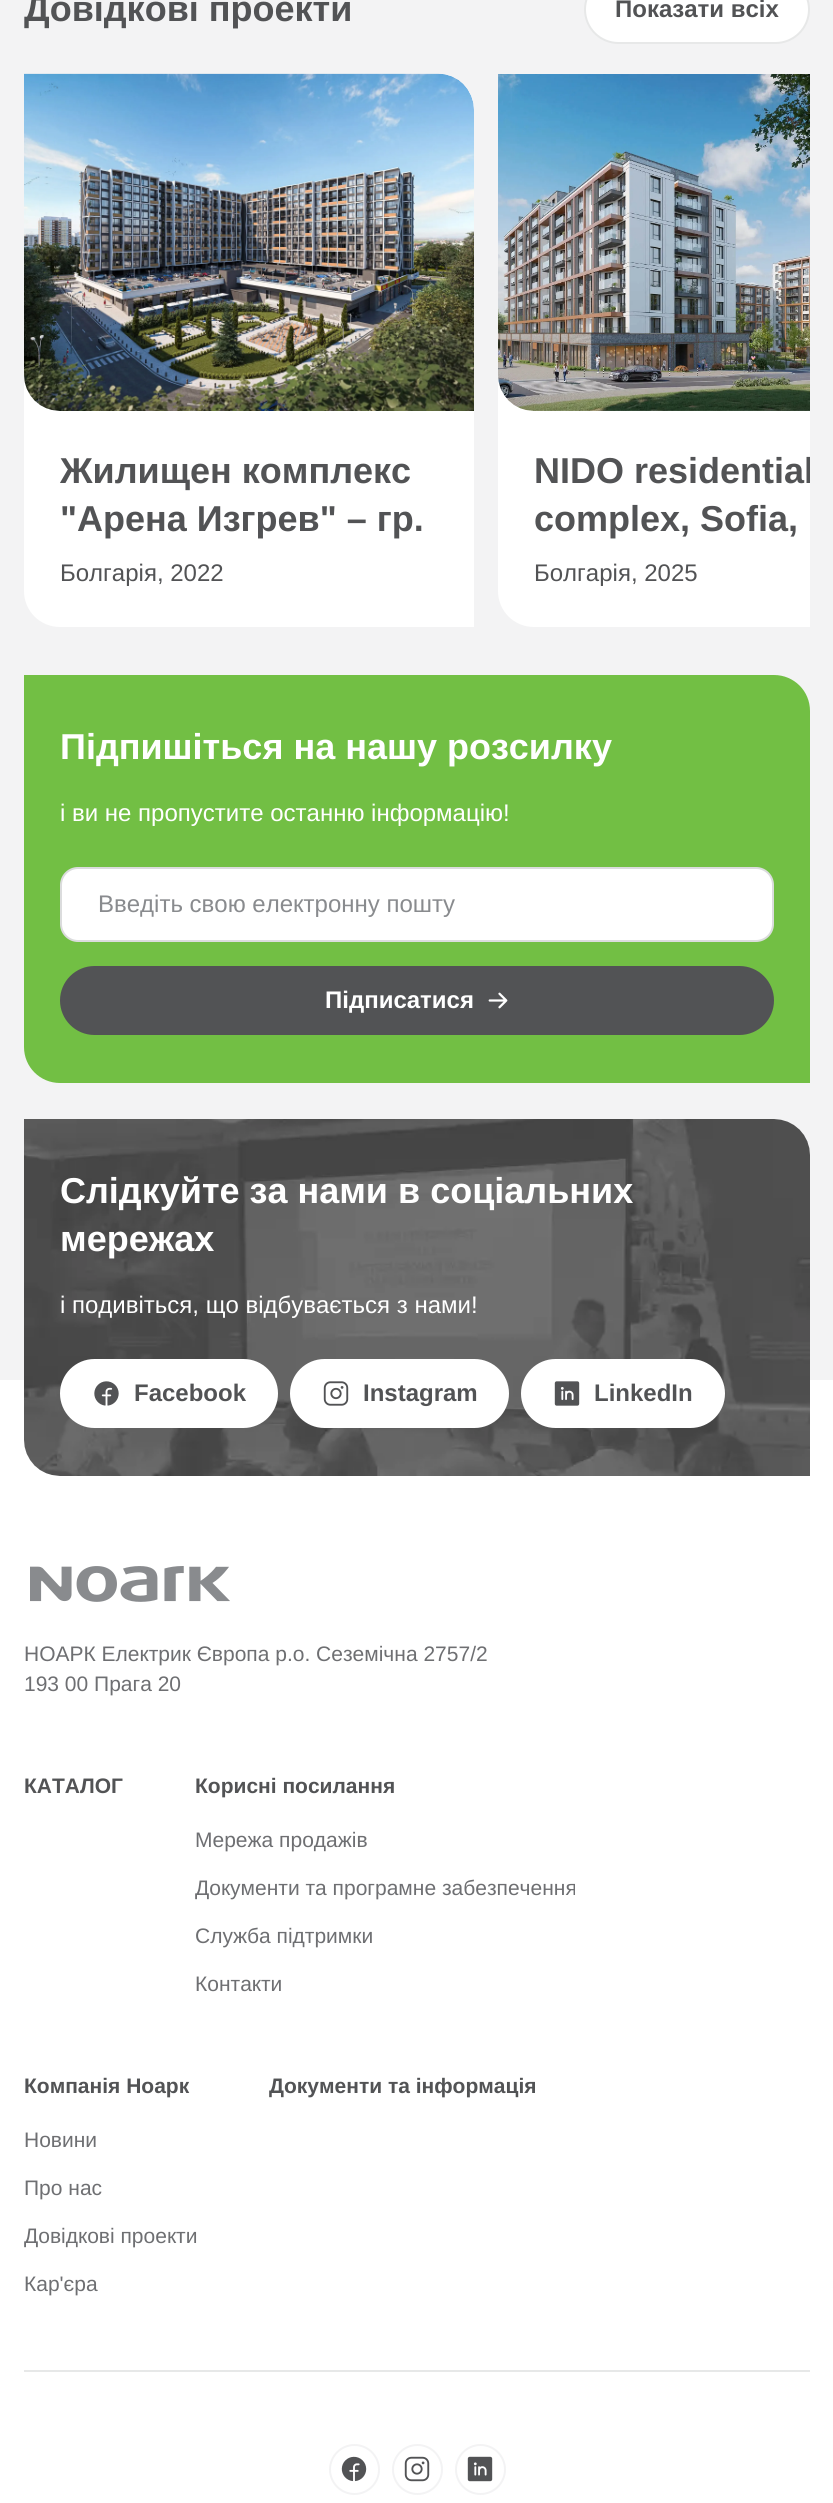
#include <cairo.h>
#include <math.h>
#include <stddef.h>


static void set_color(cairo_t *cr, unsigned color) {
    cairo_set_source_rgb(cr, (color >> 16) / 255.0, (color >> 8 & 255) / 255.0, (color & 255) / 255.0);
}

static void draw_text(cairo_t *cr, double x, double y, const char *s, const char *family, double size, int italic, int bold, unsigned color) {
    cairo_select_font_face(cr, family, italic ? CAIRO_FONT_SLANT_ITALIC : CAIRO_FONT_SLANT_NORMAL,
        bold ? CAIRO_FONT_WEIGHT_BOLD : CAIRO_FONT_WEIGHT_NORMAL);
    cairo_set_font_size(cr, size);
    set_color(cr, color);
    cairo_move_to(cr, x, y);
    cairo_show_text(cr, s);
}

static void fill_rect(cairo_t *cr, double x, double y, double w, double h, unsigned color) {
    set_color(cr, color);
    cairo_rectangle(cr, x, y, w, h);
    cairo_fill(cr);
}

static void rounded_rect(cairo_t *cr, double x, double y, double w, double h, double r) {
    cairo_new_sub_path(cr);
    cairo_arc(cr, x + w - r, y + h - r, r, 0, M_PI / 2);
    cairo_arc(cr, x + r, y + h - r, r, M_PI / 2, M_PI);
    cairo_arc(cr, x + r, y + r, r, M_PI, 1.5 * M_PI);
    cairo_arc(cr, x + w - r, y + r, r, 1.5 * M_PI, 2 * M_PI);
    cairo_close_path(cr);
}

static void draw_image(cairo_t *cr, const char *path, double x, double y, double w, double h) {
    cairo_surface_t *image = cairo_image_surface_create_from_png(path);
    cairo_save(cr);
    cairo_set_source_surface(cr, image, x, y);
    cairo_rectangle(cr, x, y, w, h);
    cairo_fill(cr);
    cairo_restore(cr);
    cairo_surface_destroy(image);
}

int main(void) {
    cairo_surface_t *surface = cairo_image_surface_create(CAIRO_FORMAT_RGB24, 833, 2503);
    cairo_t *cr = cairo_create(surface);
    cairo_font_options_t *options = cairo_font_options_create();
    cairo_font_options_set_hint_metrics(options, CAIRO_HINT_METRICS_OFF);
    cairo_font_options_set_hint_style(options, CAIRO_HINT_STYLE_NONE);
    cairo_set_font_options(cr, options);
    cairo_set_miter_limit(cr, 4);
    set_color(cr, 0xF3F3F4);
    cairo_paint(cr);
    draw_text(cr, 24, 21, "Довідкові проекти", "Liberation Sans", 36, 0, 1, 0x525355);
    set_color(cr, 0xFFFFFF);
    rounded_rect(cr, 585, -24, 224, 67, 33.5);
    cairo_fill_preserve(cr);
    set_color(cr, 0xE7E8E8);
    cairo_stroke(cr);
    draw_text(cr, 615, 17, "Показати всіх", "Liberation Sans", 24, 0, 1, 0x525355);
    set_color(cr, 0xFFFFFF);
    cairo_new_path(cr);
    cairo_move_to(cr, 24, 74);
    cairo_line_to(cr, 438, 74);
    cairo_curve_to(cr, 458, 74, 474, 90, 474, 110);
    cairo_line_to(cr, 474, 627);
    cairo_line_to(cr, 60, 627);
    cairo_curve_to(cr, 40, 627, 24, 611, 24, 591);
    cairo_close_path(cr);
    cairo_fill(cr);
    draw_image(cr, "assets/img1.png", 24, 73, 450, 338);
    draw_text(cr, 60, 483, "Жилищен комплекс", "Liberation Sans", 36, 0, 1, 0x525355);
    draw_text(cr, 60, 531, "\"Арена Изгрев\" – гр.", "Liberation Sans", 36, 0, 1, 0x525355);
    draw_text(cr, 60, 581, "Болгарія, 2022", "Liberation Sans", 24, 0, 0, 0x525355);
    set_color(cr, 0xFFFFFF);
    cairo_new_path(cr);
    cairo_move_to(cr, 498, 74);
    cairo_line_to(cr, 810, 74);
    cairo_line_to(cr, 810, 627);
    cairo_line_to(cr, 534, 627);
    cairo_curve_to(cr, 514, 627, 498, 611, 498, 591);
    cairo_close_path(cr);
    cairo_fill(cr);
    draw_image(cr, "assets/img2.png", 498, 74, 312, 337);
    cairo_save(cr);
    cairo_rectangle(cr, 534, 447, 276, 96);
    cairo_clip(cr);
    draw_text(cr, 534, 483, "NIDO residential", "Liberation Sans", 36, 0, 1, 0x525355);
    cairo_restore(cr);
    draw_text(cr, 534, 531, "complex, Sofia,", "Liberation Sans", 36, 0, 1, 0x525355);
    draw_text(cr, 534, 581, "Болгарія, 2025", "Liberation Sans", 24, 0, 0, 0x525355);
    set_color(cr, 0x72BF44);
    cairo_new_path(cr);
    cairo_move_to(cr, 24, 675);
    cairo_line_to(cr, 774, 675);
    cairo_curve_to(cr, 794, 675, 810, 691, 810, 711);
    cairo_line_to(cr, 810, 1083);
    cairo_line_to(cr, 60, 1083);
    cairo_curve_to(cr, 40, 1083, 24, 1067, 24, 1047);
    cairo_close_path(cr);
    cairo_fill(cr);
    draw_text(cr, 60, 759, "Підпишіться на нашу розсилку", "Liberation Sans", 36, 0, 1, 0xFFFFFF);
    draw_text(cr, 60, 821, "і ви не пропустите останню інформацію!", "Liberation Sans", 24, 0, 0, 0xFFFFFF);
    rounded_rect(cr, 61, 868, 712, 73, 17);
    cairo_fill_preserve(cr);
    set_color(cr, 0xDBDCDD);
    cairo_stroke(cr);
    draw_text(cr, 98, 912, "Введіть свою електронну пошту", "Liberation Sans", 24, 0, 0, 0x898B8E);
    set_color(cr, 0x525355);
    rounded_rect(cr, 61, 967, 712, 67, 33.5);
    cairo_fill_preserve(cr);
    cairo_stroke(cr);
    draw_text(cr, 325, 1008, "Підписатися", "Liberation Sans", 24, 0, 1, 0xFFFFFF);
    draw_image(cr, "assets/img3.png", 488, 992, 20, 17);
    fill_rect(cr, 0, 1380, 833, 1123, 0xFFFFFF);
    draw_image(cr, "assets/img4.png", 24, 1119, 786, 357);
    draw_text(cr, 60, 1203, "Слідкуйте за нами в соціальних", "Liberation Sans", 36, 0, 1, 0xFFFFFF);
    draw_text(cr, 60, 1251, "мережах", "Liberation Sans", 36, 0, 1, 0xFFFFFF);
    draw_text(cr, 60, 1313, "і подивіться, що відбувається з нами!", "Liberation Sans", 24, 0, 0, 0xFFFFFF);
    rounded_rect(cr, 61, 1360, 216, 67, 33.5);
    cairo_fill_preserve(cr);
    cairo_stroke(cr);
    draw_image(cr, "assets/img5.png", 94, 1381, 25, 25);
    draw_text(cr, 134, 1401, "Facebook", "Liberation Sans", 24, 0, 1, 0x525355);
    set_color(cr, 0xFFFFFF);
    rounded_rect(cr, 291, 1360, 217, 67, 33.5);
    cairo_fill_preserve(cr);
    cairo_stroke(cr);
    draw_image(cr, "assets/img6.png", 323, 1381, 26, 25);
    draw_text(cr, 363, 1401, "Instagram", "Liberation Sans", 24, 0, 1, 0x525355);
    set_color(cr, 0xFFFFFF);
    rounded_rect(cr, 522, 1360, 202, 67, 33.5);
    cairo_fill_preserve(cr);
    cairo_stroke(cr);
    draw_image(cr, "assets/img7.png", 554, 1381, 26, 25);
    draw_text(cr, 594, 1401, "LinkedIn", "Liberation Sans", 24, 0, 1, 0x525355);
    draw_image(cr, "assets/img8.png", 30, 1566, 200, 36);
    draw_text(cr, 24, 1661, "НОАРК Електрик Європа р.о. Сеземічна 2757/2", "Liberation Sans", 21, 0, 0, 0x6E6F72);
    draw_text(cr, 24, 1691, "193 00 Прага 20", "Liberation Sans", 21, 0, 0, 0x6E6F72);
    draw_text(cr, 24, 1793, "КАТАЛОГ", "Liberation Sans", 21, 0, 1, 0x525355);
    draw_text(cr, 195, 1793, "Корисні посилання", "Liberation Sans", 21, 0, 1, 0x525355);
    draw_text(cr, 195, 1847, "Мережа продажів", "Liberation Sans", 21, 0, 0, 0x6E6F72);
    draw_text(cr, 195, 1895, "Документи та програмне забезпечення", "Liberation Sans", 21, 0, 0, 0x6E6F72);
    draw_text(cr, 195, 1943, "Служба підтримки", "Liberation Sans", 21, 0, 0, 0x6E6F72);
    draw_text(cr, 195, 1991, "Контакти", "Liberation Sans", 21, 0, 0, 0x6E6F72);
    draw_text(cr, 24, 2093, "Компанія Ноарк", "Liberation Sans", 21, 0, 1, 0x525355);
    draw_text(cr, 24, 2147, "Новини", "Liberation Sans", 21, 0, 0, 0x6E6F72);
    draw_text(cr, 24, 2195, "Про нас", "Liberation Sans", 21, 0, 0, 0x6E6F72);
    draw_text(cr, 24, 2243, "Довідкові проекти", "Liberation Sans", 21, 0, 0, 0x6E6F72);
    draw_text(cr, 24, 2291, "Кар'єра", "Liberation Sans", 21, 0, 0, 0x6E6F72);
    draw_text(cr, 269, 2093, "Документи та інформація", "Liberation Sans", 21, 0, 1, 0x525355);
    fill_rect(cr, 24, 2370, 786, 2, 0xE7E8E8);
    cairo_new_path(cr);
    cairo_arc(cr, 354.5, 2469.5, 24.5, 0, 2 * M_PI);
    set_color(cr, 0xF3F3F4);
    cairo_stroke(cr);
    draw_image(cr, "assets/img9.png", 341, 2456, 26, 26);
    cairo_arc(cr, 417.5, 2469.5, 24.5, 0, 2 * M_PI);
    cairo_stroke(cr);
    draw_image(cr, "assets/img10.png", 404, 2456, 26, 26);
    cairo_arc(cr, 480.5, 2469.5, 24.5, 0, 2 * M_PI);
    cairo_stroke(cr);
    draw_image(cr, "assets/img11.png", 467, 2456, 26, 26);
    cairo_surface_write_to_png(surface, "output.png");
    cairo_font_options_destroy(options);
    cairo_destroy(cr);
    cairo_surface_destroy(surface);
    return 0;
}
